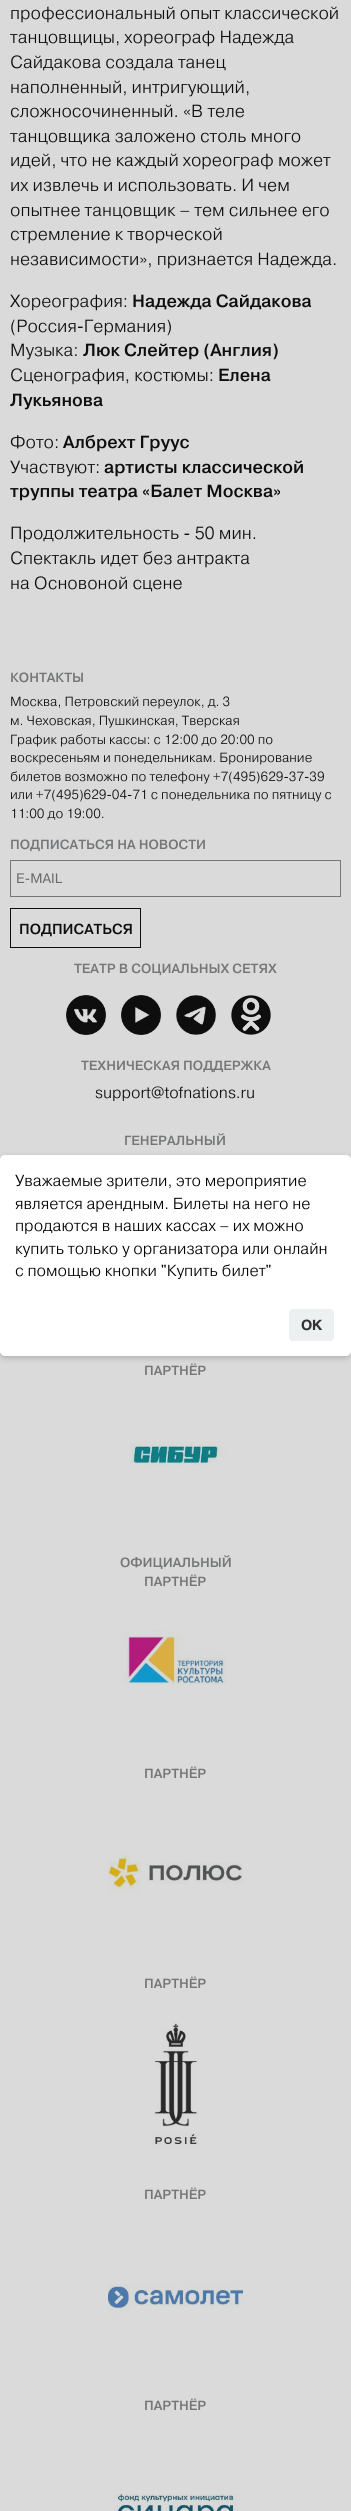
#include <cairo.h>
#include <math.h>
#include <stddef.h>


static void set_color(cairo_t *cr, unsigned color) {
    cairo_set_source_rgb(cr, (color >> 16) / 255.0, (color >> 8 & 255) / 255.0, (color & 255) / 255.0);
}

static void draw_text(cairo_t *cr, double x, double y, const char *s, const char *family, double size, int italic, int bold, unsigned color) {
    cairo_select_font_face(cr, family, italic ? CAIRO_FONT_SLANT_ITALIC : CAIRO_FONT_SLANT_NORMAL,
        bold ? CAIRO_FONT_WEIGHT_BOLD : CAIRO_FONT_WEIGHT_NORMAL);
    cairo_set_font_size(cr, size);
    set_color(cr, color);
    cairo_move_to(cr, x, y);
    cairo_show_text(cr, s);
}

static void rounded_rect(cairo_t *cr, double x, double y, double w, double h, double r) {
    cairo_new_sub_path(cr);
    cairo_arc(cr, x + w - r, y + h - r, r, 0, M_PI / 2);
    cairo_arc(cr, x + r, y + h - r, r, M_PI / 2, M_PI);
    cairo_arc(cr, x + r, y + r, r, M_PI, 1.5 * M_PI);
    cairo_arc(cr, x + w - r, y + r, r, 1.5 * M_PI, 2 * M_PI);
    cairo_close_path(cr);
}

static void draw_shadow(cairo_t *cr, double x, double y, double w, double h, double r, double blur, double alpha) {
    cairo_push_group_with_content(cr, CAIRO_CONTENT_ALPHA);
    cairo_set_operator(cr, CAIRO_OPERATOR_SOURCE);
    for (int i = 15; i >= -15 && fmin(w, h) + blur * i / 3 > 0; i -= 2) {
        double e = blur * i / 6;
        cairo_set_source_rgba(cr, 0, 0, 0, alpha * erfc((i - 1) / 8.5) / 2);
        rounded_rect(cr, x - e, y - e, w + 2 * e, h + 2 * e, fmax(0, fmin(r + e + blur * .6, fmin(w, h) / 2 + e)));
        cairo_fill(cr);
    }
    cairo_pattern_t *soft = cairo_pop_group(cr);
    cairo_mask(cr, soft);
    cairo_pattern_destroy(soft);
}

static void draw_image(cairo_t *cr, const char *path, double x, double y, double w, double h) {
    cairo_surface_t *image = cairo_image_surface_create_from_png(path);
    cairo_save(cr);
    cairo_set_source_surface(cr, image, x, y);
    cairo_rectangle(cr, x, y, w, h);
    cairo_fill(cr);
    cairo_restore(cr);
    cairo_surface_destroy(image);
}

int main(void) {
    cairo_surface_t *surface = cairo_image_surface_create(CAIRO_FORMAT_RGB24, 351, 2511);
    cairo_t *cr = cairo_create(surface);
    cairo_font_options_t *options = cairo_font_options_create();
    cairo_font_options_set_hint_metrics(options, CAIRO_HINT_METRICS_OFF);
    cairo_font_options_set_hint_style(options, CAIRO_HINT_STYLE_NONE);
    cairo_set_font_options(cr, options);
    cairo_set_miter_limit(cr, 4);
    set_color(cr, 0xDADADA);
    cairo_paint(cr);
    draw_text(cr, 10, 19, "профессиональный опыт классической", "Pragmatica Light", 17.6, 0, 0, 0x0E0E0E);
    draw_text(cr, 10, 43, "танцовщицы, хореограф Надежда", "Pragmatica Light", 17.6, 0, 0, 0x0E0E0E);
    draw_text(cr, 10, 68, "Сайдакова создала танец", "Pragmatica Light", 17.6, 0, 0, 0x0E0E0E);
    draw_text(cr, 10, 93, "наполненный, интригующий,", "Pragmatica Light", 17.6, 0, 0, 0x0E0E0E);
    draw_text(cr, 10, 117, "сложносочиненный. «В теле", "Pragmatica Light", 17.6, 0, 0, 0x0E0E0E);
    draw_text(cr, 10, 142, "танцовщика заложено столь много", "Pragmatica Light", 17.6, 0, 0, 0x0E0E0E);
    draw_text(cr, 10, 166, "идей, что не каждый хореограф может", "Pragmatica Light", 17.6, 0, 0, 0x0E0E0E);
    draw_text(cr, 10, 191, "их извлечь и использовать. И чем", "Pragmatica Light", 17.6, 0, 0, 0x0E0E0E);
    draw_text(cr, 10, 216, "опытнее танцовщик – тем сильнее его", "Pragmatica Light", 17.6, 0, 0, 0x0E0E0E);
    draw_text(cr, 10, 240, "стремление к творческой", "Pragmatica Light", 17.6, 0, 0, 0x0E0E0E);
    draw_text(cr, 10, 265, "независимости», признается Надежда.", "Pragmatica Light", 17.6, 0, 0, 0x0E0E0E);
    draw_text(cr, 10, 307, "Хореография:", "Pragmatica Light", 17.6, 0, 0, 0x0E0E0E);
    draw_text(cr, 132, 307, "Надежда Сайдакова", "Pragmatica Medium", 17.6, 0, 0, 0x0E0E0E);
    draw_text(cr, 10, 332, "(Россия-Германия)", "Pragmatica Light", 17.6, 0, 0, 0x0E0E0E);
    draw_text(cr, 10, 356, "Музыка:", "Pragmatica Light", 17.6, 0, 0, 0x0E0E0E);
    draw_text(cr, 83, 356, "Люк Слейтер (Англия)", "Pragmatica Medium", 17.6, 0, 0, 0x0E0E0E);
    draw_text(cr, 10, 381, "Сценография, костюмы:", "Pragmatica Light", 17.6, 0, 0, 0x0E0E0E);
    draw_text(cr, 218, 381, "Елена", "Pragmatica Medium", 17.6, 0, 0, 0x0E0E0E);
    draw_text(cr, 10, 406, "Лукьянова", "Pragmatica Medium", 17.6, 0, 0, 0x0E0E0E);
    draw_text(cr, 10, 448, "Фото:", "Pragmatica Light", 17.6, 0, 0, 0x0E0E0E);
    draw_text(cr, 63, 448, "Албрехт Груус", "Pragmatica Medium", 17.6, 0, 0, 0x0E0E0E);
    draw_text(cr, 10, 473, "Участвуют:", "Pragmatica Light", 17.6, 0, 0, 0x0E0E0E);
    draw_text(cr, 104, 473, "артисты классической", "Pragmatica Medium", 17.6, 0, 0, 0x0E0E0E);
    draw_text(cr, 10, 497, "труппы театра «Балет Москва»", "Pragmatica Medium", 17.6, 0, 0, 0x0E0E0E);
    draw_text(cr, 10, 539, "Продолжительность - 50 мин.", "Pragmatica Light", 17.6, 0, 0, 0x0E0E0E);
    draw_text(cr, 10, 564, "Спектакль идет без антракта", "Pragmatica Light", 17.6, 0, 0, 0x0E0E0E);
    draw_text(cr, 10, 589, "на Основоной сцене", "Pragmatica Light", 17.6, 0, 0, 0x0E0E0E);
    draw_text(cr, 10, 682, "КОНТАКТЫ", "Pragmatica Medium", 13.25, 0, 0, 0x747678);
    draw_text(cr, 10, 706, "Москва, Петровский переулок, д. 3", "Pragmatica Light", 13.25, 0, 0, 0x0E0E0E);
    draw_text(cr, 10, 725, "м. Чеховская, Пушкинская, Тверская", "Pragmatica Light", 13.25, 0, 0, 0x0E0E0E);
    draw_text(cr, 10, 744, "График работы кассы: с 12:00 до 20:00 по", "Pragmatica Light", 13.25, 0, 0, 0x0E0E0E);
    draw_text(cr, 10, 762, "воскресеньям и понедельникам. Бронирование", "Pragmatica Light", 13.25, 0, 0, 0x0E0E0E);
    draw_text(cr, 10, 781, "билетов возможно по телефону +7(495)629-37-39", "Pragmatica Light", 13.25, 0, 0, 0x0E0E0E);
    draw_text(cr, 10, 799, "или +7(495)629-04-71 с понедельника по пятницу с", "Pragmatica Light", 13.25, 0, 0, 0x0E0E0E);
    draw_text(cr, 10, 818, "11:00 до 19:00.", "Pragmatica Light", 13.25, 0, 0, 0x0E0E0E);
    draw_text(cr, 10, 849, "ПОДПИСАТЬСЯ НА НОВОСТИ", "Pragmatica Medium", 13.25, 0, 0, 0x747678);
    cairo_rectangle(cr, 10.5, 860.5, 330, 36);
    cairo_set_line_width(cr, 1);
    cairo_stroke(cr);
    draw_text(cr, 16, 883, "E-MAIL", "Pragmatica", 13, 0, 0, 0x6B6B6B);
    cairo_rectangle(cr, 10.5, 908.5, 130, 39);
    set_color(cr, 0x0E0E0E);
    cairo_stroke(cr);
    draw_text(cr, 19, 934, "ПОДПИСАТЬСЯ", "Pragmatica Medium", 14.5, 0, 0, 0x0E0E0E);
    draw_text(cr, 74, 973, "ТЕАТР В СОЦИАЛЬНЫХ СЕТЯХ", "Pragmatica Medium", 13.25, 0, 0, 0x747678);
    draw_image(cr, "assets/img1.png", 66, 995, 40, 40);
    draw_image(cr, "assets/img2.png", 121, 995, 40, 40);
    draw_image(cr, "assets/img3.png", 176, 995, 40, 40);
    draw_image(cr, "assets/img4.png", 231, 995, 40, 40);
    draw_text(cr, 81, 1070, "ТЕХНИЧЕСКАЯ ПОДДЕРЖКА", "Pragmatica Medium", 13.25, 0, 0, 0x747678);
    draw_text(cr, 95, 1098, "support@tofnations.ru", "Pragmatica Light", 16, 0, 0, 0x0E0E0E);
    draw_text(cr, 124, 1145, "ГЕНЕРАЛЬНЫЙ", "Pragmatica Medium", 13.25, 0, 0, 0x747678);
    draw_text(cr, 144, 1375, "ПАРТНЁР", "Pragmatica Medium", 13.25, 0, 0, 0x747678);
    draw_image(cr, "assets/img5.png", 129, 1441, 98, 25);
    draw_text(cr, 120, 1567, "ОФИЦИАЛЬНЫЙ", "Pragmatica Medium", 13.25, 0, 0, 0x747678);
    draw_text(cr, 144, 1586, "ПАРТНЁР", "Pragmatica Medium", 13.25, 0, 0, 0x747678);
    draw_image(cr, "assets/img6.png", 122, 1630, 105, 55);
    draw_text(cr, 144, 1778, "ПАРТНЁР", "Pragmatica Medium", 13.25, 0, 0, 0x747678);
    draw_image(cr, "assets/img7.png", 108, 1851, 135, 44);
    draw_text(cr, 144, 1988, "ПАРТНЁР", "Pragmatica Medium", 13.25, 0, 0, 0x747678);
    draw_image(cr, "assets/img8.png", 151, 2022, 48, 126);
    draw_text(cr, 144, 2199, "ПАРТНЁР", "Pragmatica Medium", 13.25, 0, 0, 0x747678);
    draw_image(cr, "assets/img9.png", 108, 2284, 135, 31);
    draw_text(cr, 144, 2410, "ПАРТНЁР", "Pragmatica Medium", 13.25, 0, 0, 0x747678);
    draw_image(cr, "assets/img10.png", 113, 2494, 125, 17);
    set_color(cr, 0x000000);
    draw_shadow(cr, 0, 1157, 351, 201, 5, 3, 0.2);
    set_color(cr, 0xFFFFFF);
    rounded_rect(cr, 0, 1155, 351, 201, 5);
    cairo_fill(cr);
    draw_text(cr, 15, 1186, "Уважаемые зрители, это мероприятие", "Pragmatica Light", 16, 0, 0, 0x000000);
    draw_text(cr, 15, 1209, "является арендным. Билеты на него не", "Pragmatica Light", 16, 0, 0, 0x000000);
    draw_text(cr, 15, 1231, "продаются в наших кассах – их можно", "Pragmatica Light", 16, 0, 0, 0x000000);
    draw_text(cr, 15, 1254, "купить только у организатора или онлайн", "Pragmatica Light", 16, 0, 0, 0x000000);
    draw_text(cr, 15, 1276, "с помощью кнопки \"Купить билет\"", "Pragmatica Light", 16, 0, 0, 0x000000);
    set_color(cr, 0xECF0F1);
    rounded_rect(cr, 289, 1309, 45, 32, 4);
    cairo_fill(cr);
    draw_text(cr, 301, 1330, "OK", "Pragmatica", 14, 0, 1, 0x333333);
    cairo_surface_write_to_png(surface, "output.png");
    cairo_font_options_destroy(options);
    cairo_destroy(cr);
    cairo_surface_destroy(surface);
    return 0;
}
